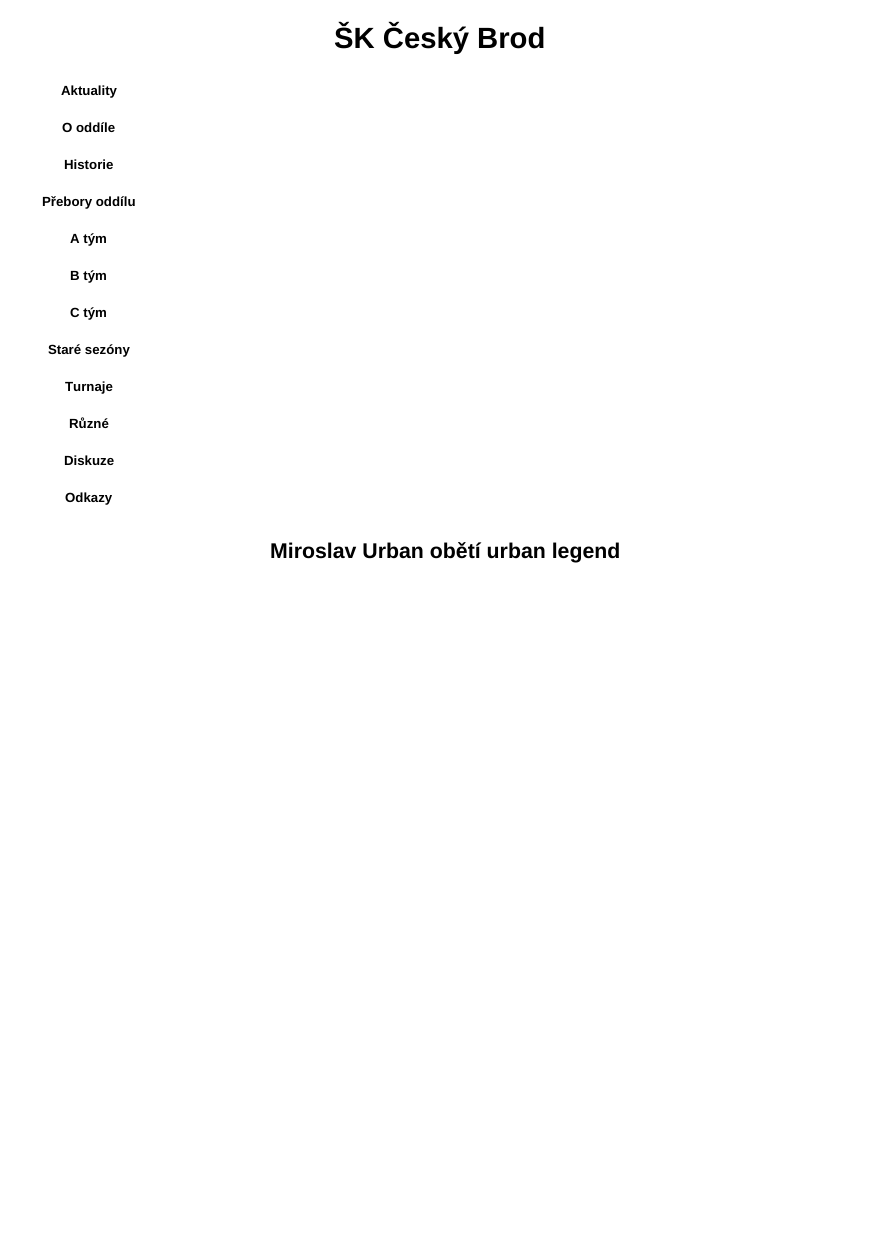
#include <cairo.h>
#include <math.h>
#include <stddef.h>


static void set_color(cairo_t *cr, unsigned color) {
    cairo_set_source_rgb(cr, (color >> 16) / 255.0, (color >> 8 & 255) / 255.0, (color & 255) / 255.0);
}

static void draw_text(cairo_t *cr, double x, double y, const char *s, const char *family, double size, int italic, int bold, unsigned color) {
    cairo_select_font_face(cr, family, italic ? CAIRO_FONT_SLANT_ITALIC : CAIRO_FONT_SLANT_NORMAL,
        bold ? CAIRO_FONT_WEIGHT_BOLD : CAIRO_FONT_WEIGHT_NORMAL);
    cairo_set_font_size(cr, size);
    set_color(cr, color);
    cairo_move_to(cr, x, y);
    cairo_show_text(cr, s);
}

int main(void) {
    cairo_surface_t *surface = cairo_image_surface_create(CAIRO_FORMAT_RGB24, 879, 1233);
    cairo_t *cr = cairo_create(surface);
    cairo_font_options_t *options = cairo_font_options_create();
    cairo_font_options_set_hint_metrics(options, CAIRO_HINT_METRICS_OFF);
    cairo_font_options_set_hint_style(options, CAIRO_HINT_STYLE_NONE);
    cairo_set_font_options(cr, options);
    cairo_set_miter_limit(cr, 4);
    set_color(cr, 0xFFFFFF);
    cairo_paint(cr);
    draw_text(cr, 334, 48, "ŠK Český Brod", "Liberation Sans", 29.25, 0, 1, 0x000000);
    draw_text(cr, 61, 95, "Aktuality", "Liberation Sans", 13.25, 0, 1, 0x000000);
    draw_text(cr, 62, 132, "O oddíle", "Liberation Sans", 13.25, 0, 1, 0x000000);
    draw_text(cr, 64, 169, "Historie", "Liberation Sans", 13.25, 0, 1, 0x000000);
    draw_text(cr, 42, 206, "Přebory oddílu", "Liberation Sans", 13.25, 0, 1, 0x000000);
    draw_text(cr, 70, 243, "A tým", "Liberation Sans", 13.25, 0, 1, 0x000000);
    draw_text(cr, 70, 280, "B tým", "Liberation Sans", 13.25, 0, 1, 0x000000);
    draw_text(cr, 70, 317, "C tým", "Liberation Sans", 13.25, 0, 1, 0x000000);
    draw_text(cr, 48, 354, "Staré sezóny", "Liberation Sans", 13.25, 0, 1, 0x000000);
    draw_text(cr, 65, 391, "Turnaje", "Liberation Sans", 13.25, 0, 1, 0x000000);
    draw_text(cr, 69, 428, "Různé", "Liberation Sans", 13.25, 0, 1, 0x000000);
    draw_text(cr, 64, 465, "Diskuze", "Liberation Sans", 13.25, 0, 1, 0x000000);
    draw_text(cr, 65, 502, "Odkazy", "Liberation Sans", 13.25, 0, 1, 0x000000);
    draw_text(cr, 270, 558, "Miroslav Urban obětí urban legend", "Liberation Sans", 21.3, 0, 1, 0x000000);
    cairo_surface_write_to_png(surface, "output.png");
    cairo_font_options_destroy(options);
    cairo_destroy(cr);
    cairo_surface_destroy(surface);
    return 0;
}
